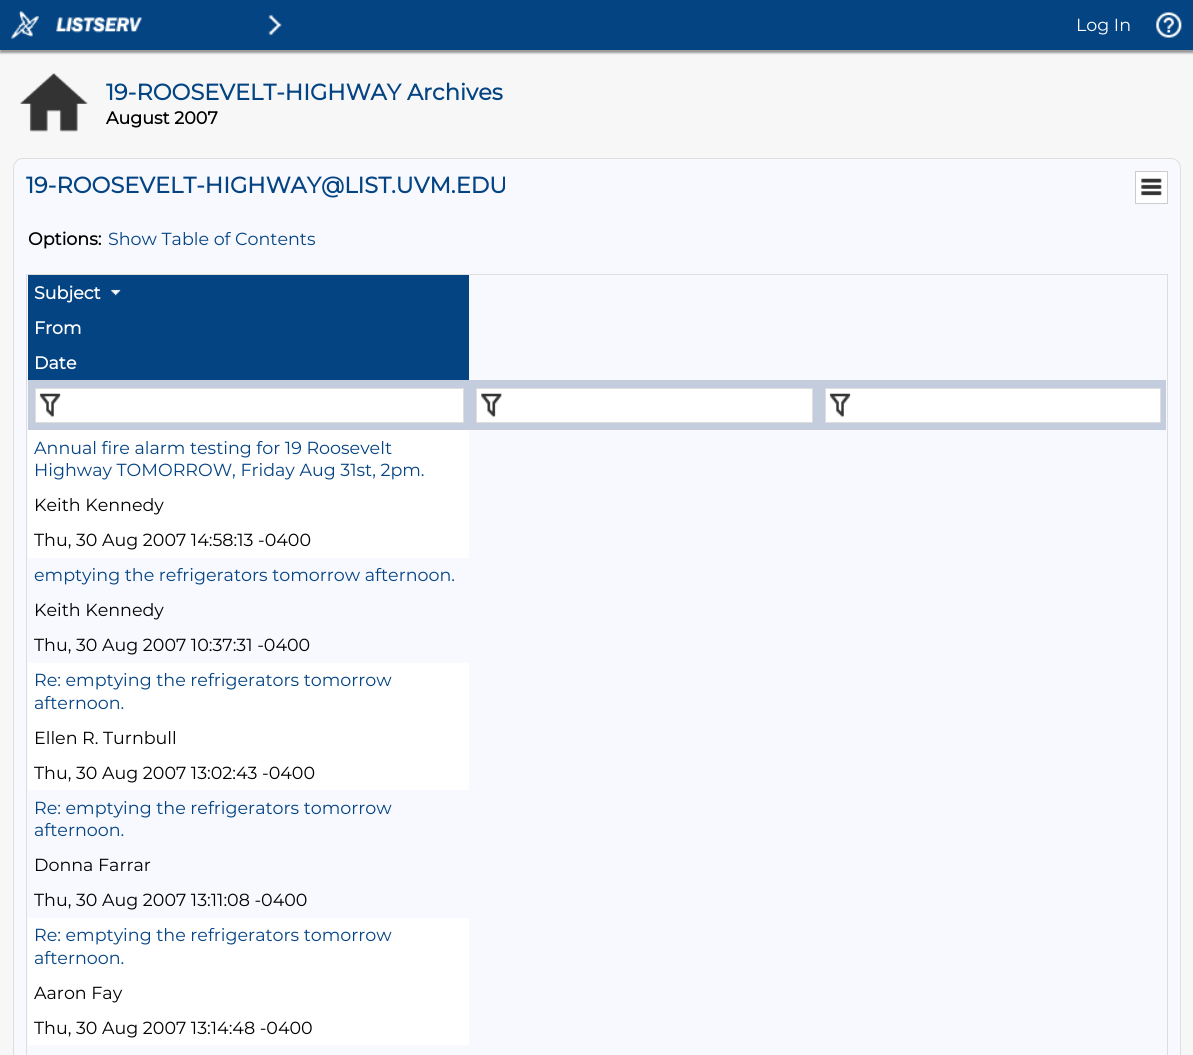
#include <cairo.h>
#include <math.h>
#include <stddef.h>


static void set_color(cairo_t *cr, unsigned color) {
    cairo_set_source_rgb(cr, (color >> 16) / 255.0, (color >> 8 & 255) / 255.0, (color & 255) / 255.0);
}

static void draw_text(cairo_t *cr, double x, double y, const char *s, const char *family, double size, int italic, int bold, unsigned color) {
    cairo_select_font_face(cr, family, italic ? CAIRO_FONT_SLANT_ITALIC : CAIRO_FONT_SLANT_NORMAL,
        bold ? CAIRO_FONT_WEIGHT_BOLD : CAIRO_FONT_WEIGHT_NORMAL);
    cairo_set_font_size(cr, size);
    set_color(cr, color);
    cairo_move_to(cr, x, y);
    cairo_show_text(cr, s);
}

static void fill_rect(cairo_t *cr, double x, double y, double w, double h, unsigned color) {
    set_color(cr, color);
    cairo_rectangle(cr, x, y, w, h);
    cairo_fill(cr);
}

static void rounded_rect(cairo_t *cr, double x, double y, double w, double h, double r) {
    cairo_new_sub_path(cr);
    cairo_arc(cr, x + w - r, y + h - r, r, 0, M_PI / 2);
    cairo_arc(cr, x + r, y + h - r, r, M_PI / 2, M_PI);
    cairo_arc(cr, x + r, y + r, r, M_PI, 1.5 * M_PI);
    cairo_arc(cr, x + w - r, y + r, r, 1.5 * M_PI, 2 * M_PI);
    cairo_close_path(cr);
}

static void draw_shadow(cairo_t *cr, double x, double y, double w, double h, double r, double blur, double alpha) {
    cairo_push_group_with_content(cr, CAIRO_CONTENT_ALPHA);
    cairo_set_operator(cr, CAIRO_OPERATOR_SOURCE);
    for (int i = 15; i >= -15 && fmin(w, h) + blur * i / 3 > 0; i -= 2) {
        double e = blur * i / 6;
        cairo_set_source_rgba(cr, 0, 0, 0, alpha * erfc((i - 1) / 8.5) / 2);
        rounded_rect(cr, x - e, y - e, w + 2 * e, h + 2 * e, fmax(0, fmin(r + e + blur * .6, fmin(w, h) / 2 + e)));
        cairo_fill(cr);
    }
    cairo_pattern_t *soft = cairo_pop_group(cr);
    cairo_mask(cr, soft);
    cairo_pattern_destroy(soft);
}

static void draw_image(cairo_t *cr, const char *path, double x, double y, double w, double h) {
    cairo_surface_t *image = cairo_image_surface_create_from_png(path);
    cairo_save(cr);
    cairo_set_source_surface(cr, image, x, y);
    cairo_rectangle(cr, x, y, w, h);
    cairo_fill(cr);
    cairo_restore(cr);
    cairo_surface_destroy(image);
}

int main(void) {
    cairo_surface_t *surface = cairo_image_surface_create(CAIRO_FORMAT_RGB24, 1193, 1055);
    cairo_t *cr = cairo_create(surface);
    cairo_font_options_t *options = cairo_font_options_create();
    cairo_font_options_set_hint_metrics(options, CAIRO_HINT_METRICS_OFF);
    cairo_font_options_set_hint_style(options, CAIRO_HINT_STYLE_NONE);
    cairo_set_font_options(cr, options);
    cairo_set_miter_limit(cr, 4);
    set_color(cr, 0xF7F7F7);
    cairo_paint(cr);
    set_color(cr, 0x999999);
    draw_shadow(cr, 0, 3, 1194, 50, 0, 1, 1);
    fill_rect(cr, 0, 0, 1193, 50, 0x054483);
    draw_image(cr, "assets/img1.png", 11, 11, 28, 28);
    draw_image(cr, "assets/img2.png", 56, 17, 87, 16);
    draw_image(cr, "assets/img3.png", 268, 14, 14, 22);
    draw_text(cr, 1076, 31, "Log In", "Montserrat Thin", 17.5, 0, 0, 0xFFFFFF);
    draw_image(cr, "assets/img4.png", 1156, 12, 26, 26);
    draw_image(cr, "assets/img5.png", 20, 73, 68, 59);
    draw_text(cr, 106, 100, "19-ROOSEVELT-HIGHWAY Archives", "Montserrat", 22.5, 0, 1, 0x054483);
    draw_text(cr, 106, 124, "August 2007", "Montserrat", 17.5, 0, 1, 0x000000);
    set_color(cr, 0xF7F9FE);
    rounded_rect(cr, 13.5, 158.5, 1167, 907, 9.5);
    cairo_fill_preserve(cr);
    set_color(cr, 0xDEDEDE);
    cairo_set_line_width(cr, 1);
    cairo_stroke(cr);
    draw_text(cr, 26, 193, "19-ROOSEVELT-HIGHWAY@LIST.UVM.EDU", "Montserrat", 22.5, 0, 1, 0x054483);
    set_color(cr, 0xFFFFFF);
    cairo_rectangle(cr, 1135.5, 171.5, 32, 32);
    cairo_fill_preserve(cr);
    set_color(cr, 0xCCCCCC);
    cairo_stroke(cr);
    draw_image(cr, "assets/img6.png", 1141, 178, 21, 18);
    draw_text(cr, 28, 245, "Options:", "Montserrat", 17.5, 0, 1, 0x000000);
    draw_text(cr, 108, 245, "Show Table of Contents", "Montserrat Thin", 17.5, 0, 0, 0x054483);
    cairo_rectangle(cr, 26.5, 274.5, 1141, 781);
    set_color(cr, 0xDEDEDE);
    cairo_stroke(cr);
    fill_rect(cr, 28, 275, 441, 105, 0x054483);
    draw_text(cr, 34, 299, "Subject", "Montserrat", 17.5, 0, 1, 0xFFFFFF);
    draw_image(cr, "assets/img7.png", 111, 289, 10, 7);
    draw_text(cr, 34, 334, "From", "Montserrat", 17.5, 0, 1, 0xFFFFFF);
    draw_text(cr, 34, 369, "Date", "Montserrat", 17.5, 0, 1, 0xFFFFFF);
    fill_rect(cr, 28, 380, 1138, 50, 0xC4CDDE);
    fill_rect(cr, 36, 389, 427, 33, 0xFFFFFF);
    draw_image(cr, "assets/img8.png", 39, 393, 22, 25);
    cairo_rectangle(cr, 35.5, 388.5, 428, 34);
    set_color(cr, 0xDEDEDE);
    cairo_stroke(cr);
    fill_rect(cr, 477, 389, 335, 33, 0xFFFFFF);
    draw_image(cr, "assets/img9.png", 481, 393, 21, 25);
    cairo_rectangle(cr, 476.5, 388.5, 336, 34);
    set_color(cr, 0xDEDEDE);
    cairo_stroke(cr);
    fill_rect(cr, 826, 389, 334, 33, 0xFFFFFF);
    draw_image(cr, "assets/img8.png", 829, 393, 22, 25);
    cairo_rectangle(cr, 825.5, 388.5, 335, 34);
    set_color(cr, 0xDEDEDE);
    cairo_stroke(cr);
    fill_rect(cr, 28, 430, 441, 128, 0xFFFFFF);
    draw_text(cr, 34, 454, "Annual fire alarm testing for 19 Roosevelt", "Montserrat Thin", 17.5, 0, 0, 0x054483);
    draw_text(cr, 34, 476, "Highway TOMORROW, Friday Aug 31st, 2pm.", "Montserrat Thin", 17.5, 0, 0, 0x054483);
    draw_text(cr, 34, 511, "Keith Kennedy", "Montserrat Thin", 17.5, 0, 0, 0x000000);
    draw_text(cr, 34, 546, "Thu, 30 Aug 2007 14:58:13 -0400", "Montserrat Thin", 17.5, 0, 0, 0x000000);
    draw_text(cr, 34, 581, "emptying the refrigerators tomorrow afternoon.", "Montserrat Thin", 17.5, 0, 0, 0x054483);
    draw_text(cr, 34, 616, "Keith Kennedy", "Montserrat Thin", 17.5, 0, 0, 0x000000);
    draw_text(cr, 34, 651, "Thu, 30 Aug 2007 10:37:31 -0400", "Montserrat Thin", 17.5, 0, 0, 0x000000);
    fill_rect(cr, 28, 663, 441, 127, 0xFFFFFF);
    draw_text(cr, 34, 686, "Re: emptying the refrigerators tomorrow", "Montserrat Thin", 17.5, 0, 0, 0x054483);
    draw_text(cr, 34, 709, "afternoon.", "Montserrat Thin", 17.5, 0, 0, 0x054483);
    draw_text(cr, 34, 744, "Ellen R. Turnbull", "Montserrat Thin", 17.5, 0, 0, 0x000000);
    draw_text(cr, 34, 779, "Thu, 30 Aug 2007 13:02:43 -0400", "Montserrat Thin", 17.5, 0, 0, 0x000000);
    draw_text(cr, 34, 814, "Re: emptying the refrigerators tomorrow", "Montserrat Thin", 17.5, 0, 0, 0x054483);
    draw_text(cr, 34, 836, "afternoon.", "Montserrat Thin", 17.5, 0, 0, 0x054483);
    draw_text(cr, 34, 871, "Donna Farrar", "Montserrat Thin", 17.5, 0, 0, 0x000000);
    draw_text(cr, 34, 906, "Thu, 30 Aug 2007 13:11:08 -0400", "Montserrat Thin", 17.5, 0, 0, 0x000000);
    fill_rect(cr, 28, 918, 441, 127, 0xFFFFFF);
    draw_text(cr, 34, 941, "Re: emptying the refrigerators tomorrow", "Montserrat Thin", 17.5, 0, 0, 0x054483);
    draw_text(cr, 34, 964, "afternoon.", "Montserrat Thin", 17.5, 0, 0, 0x054483);
    draw_text(cr, 34, 999, "Aaron Fay", "Montserrat Thin", 17.5, 0, 0, 0x000000);
    draw_text(cr, 34, 1034, "Thu, 30 Aug 2007 13:14:48 -0400", "Montserrat Thin", 17.5, 0, 0, 0x000000);
    cairo_surface_write_to_png(surface, "output.png");
    cairo_font_options_destroy(options);
    cairo_destroy(cr);
    cairo_surface_destroy(surface);
    return 0;
}
